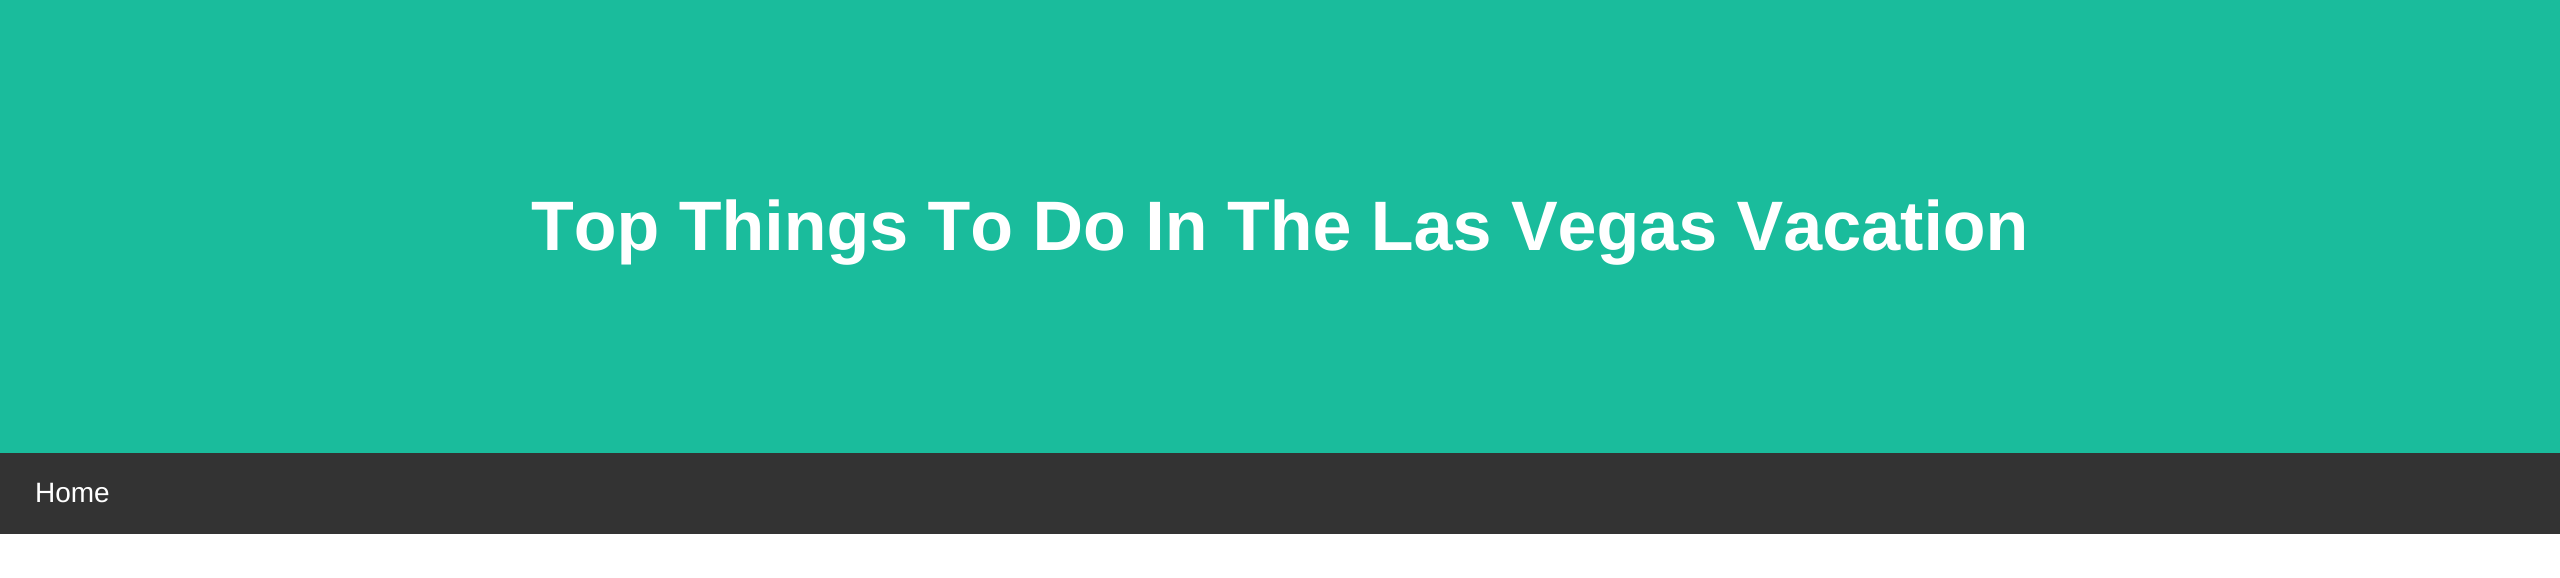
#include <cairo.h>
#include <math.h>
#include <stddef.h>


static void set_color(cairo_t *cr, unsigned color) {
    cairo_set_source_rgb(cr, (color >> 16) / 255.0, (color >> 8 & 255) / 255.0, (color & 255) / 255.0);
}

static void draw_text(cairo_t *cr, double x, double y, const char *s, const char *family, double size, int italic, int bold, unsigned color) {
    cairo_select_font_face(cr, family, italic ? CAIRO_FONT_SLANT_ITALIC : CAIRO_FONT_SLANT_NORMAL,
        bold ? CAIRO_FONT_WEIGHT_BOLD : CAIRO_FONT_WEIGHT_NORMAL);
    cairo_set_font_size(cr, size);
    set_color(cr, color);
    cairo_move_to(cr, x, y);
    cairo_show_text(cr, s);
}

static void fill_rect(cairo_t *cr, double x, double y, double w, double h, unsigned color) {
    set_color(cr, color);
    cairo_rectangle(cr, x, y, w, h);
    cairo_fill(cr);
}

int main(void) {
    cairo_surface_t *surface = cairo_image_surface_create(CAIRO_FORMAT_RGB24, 2560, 578);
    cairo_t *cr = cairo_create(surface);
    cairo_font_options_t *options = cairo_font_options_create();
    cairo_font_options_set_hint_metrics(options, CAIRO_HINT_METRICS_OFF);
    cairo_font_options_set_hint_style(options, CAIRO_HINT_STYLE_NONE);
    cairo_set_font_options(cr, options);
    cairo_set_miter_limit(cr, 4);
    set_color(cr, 0xFFFFFF);
    cairo_paint(cr);
    fill_rect(cr, 0, 0, 2560, 453, 0x1ABC9C);
    draw_text(cr, 531, 250, "Top Things To Do In The Las Vegas Vacation", "Liberation Sans", 70, 0, 1, 0xFFFFFF);
    fill_rect(cr, 0, 453, 2560, 81, 0x333333);
    draw_text(cr, 35, 502, "Home", "Liberation Sans", 28, 0, 0, 0xFFFFFF);
    cairo_surface_write_to_png(surface, "output.png");
    cairo_font_options_destroy(options);
    cairo_destroy(cr);
    cairo_surface_destroy(surface);
    return 0;
}
